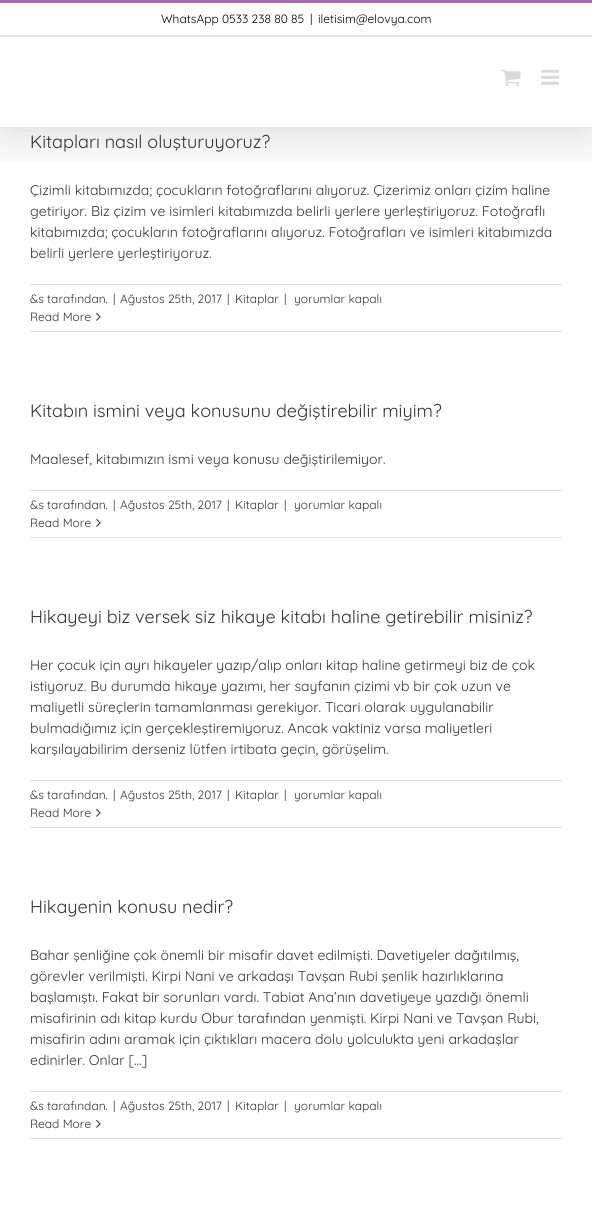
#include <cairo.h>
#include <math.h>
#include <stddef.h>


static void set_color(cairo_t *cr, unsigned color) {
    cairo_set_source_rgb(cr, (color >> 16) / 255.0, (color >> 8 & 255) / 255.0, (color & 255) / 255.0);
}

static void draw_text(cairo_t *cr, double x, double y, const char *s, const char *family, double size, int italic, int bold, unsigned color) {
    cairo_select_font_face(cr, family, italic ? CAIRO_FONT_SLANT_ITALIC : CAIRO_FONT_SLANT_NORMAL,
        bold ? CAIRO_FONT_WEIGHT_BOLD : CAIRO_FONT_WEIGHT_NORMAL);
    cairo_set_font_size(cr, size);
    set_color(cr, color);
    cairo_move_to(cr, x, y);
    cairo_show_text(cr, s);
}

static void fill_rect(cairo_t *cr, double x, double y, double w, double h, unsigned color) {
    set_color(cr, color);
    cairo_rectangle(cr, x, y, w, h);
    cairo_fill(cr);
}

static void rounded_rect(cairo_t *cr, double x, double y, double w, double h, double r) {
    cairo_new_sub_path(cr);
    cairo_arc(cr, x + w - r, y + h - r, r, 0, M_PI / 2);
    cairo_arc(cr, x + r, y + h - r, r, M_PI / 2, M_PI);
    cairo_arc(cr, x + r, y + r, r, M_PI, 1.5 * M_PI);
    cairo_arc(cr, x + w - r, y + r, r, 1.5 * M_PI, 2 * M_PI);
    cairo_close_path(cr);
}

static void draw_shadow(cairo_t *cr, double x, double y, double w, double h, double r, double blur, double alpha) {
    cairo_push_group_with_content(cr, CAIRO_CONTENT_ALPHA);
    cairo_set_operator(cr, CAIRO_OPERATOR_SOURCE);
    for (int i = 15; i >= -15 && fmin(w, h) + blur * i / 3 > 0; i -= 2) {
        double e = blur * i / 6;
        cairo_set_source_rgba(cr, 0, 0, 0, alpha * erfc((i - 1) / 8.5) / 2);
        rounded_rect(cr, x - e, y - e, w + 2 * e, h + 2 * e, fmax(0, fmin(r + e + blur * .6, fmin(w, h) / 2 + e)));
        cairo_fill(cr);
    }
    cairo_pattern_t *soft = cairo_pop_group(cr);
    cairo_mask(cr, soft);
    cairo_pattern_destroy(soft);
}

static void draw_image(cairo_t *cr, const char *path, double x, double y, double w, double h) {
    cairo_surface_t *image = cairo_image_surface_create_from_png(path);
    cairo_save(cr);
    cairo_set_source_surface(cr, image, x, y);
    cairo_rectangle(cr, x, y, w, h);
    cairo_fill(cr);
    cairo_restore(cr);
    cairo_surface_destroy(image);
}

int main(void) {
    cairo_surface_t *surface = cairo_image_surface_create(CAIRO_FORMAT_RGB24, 592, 1214);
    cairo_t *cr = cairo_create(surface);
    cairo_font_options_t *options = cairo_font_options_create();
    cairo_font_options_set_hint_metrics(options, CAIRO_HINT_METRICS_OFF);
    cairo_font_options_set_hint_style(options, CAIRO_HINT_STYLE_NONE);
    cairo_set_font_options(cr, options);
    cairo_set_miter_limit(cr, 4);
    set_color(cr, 0xFFFFFF);
    cairo_paint(cr);
    cairo_save(cr);
    cairo_rectangle(cr, 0, 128, 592, 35);
    cairo_clip(cr);
    set_color(cr, 0x000000);
    draw_shadow(cr, 2, 12, 588, 124, 0, 25, 0.14);
    cairo_restore(cr);
    fill_rect(cr, 0, 0, 592, 3, 0xA26CAE);
    fill_rect(cr, 0, 35, 592, 2, 0xE5E5E5);
    draw_text(cr, 161, 23, "WhatsApp 0533 238 80 85", "Quicksand", 12, 0, 0, 0x000000);
    draw_text(cr, 310, 23, "|", "Quicksand", 12, 0, 0, 0x000000);
    draw_text(cr, 318, 23, "iletisim@elovya.com", "Quicksand", 12, 0, 0, 0x000000);
    fill_rect(cr, 0, 127, 592, 1, 0xE5E5E5);
    draw_image(cr, "assets/img1.png", 501, 69, 20, 18);
    draw_image(cr, "assets/img2.png", 541, 69, 18, 16);
    draw_text(cr, 30, 148, "Kitapları nasıl oluşturuyoruz?", "Quicksand", 18, 0, 0, 0x333333);
    draw_text(cr, 30, 195, "Çizimli kitabımızda; çocukların fotoğraflarını alıyoruz. Çizerimiz onları çizim haline", "Quicksand", 14, 0, 0, 0x333333);
    draw_text(cr, 30, 216, "getiriyor. Biz çizim ve isimleri kitabımızda belirli yerlere yerleştiriyoruz. Fotoğraflı", "Quicksand", 14, 0, 0, 0x333333);
    draw_text(cr, 30, 237, "kitabımızda; çocukların fotoğraflarını alıyoruz. Fotoğrafları ve isimleri kitabımızda", "Quicksand", 14, 0, 0, 0x333333);
    draw_text(cr, 30, 258, "belirli yerlere yerleştiriyoruz.", "Quicksand", 14, 0, 0, 0x333333);
    fill_rect(cr, 30, 284, 532, 1, 0xE0DEDE);
    fill_rect(cr, 30, 331, 532, 1, 0xE0DEDE);
    draw_text(cr, 30, 303, "&s tarafından.", "Quicksand", 12, 0, 0, 0x333333);
    draw_text(cr, 113, 303, "|", "Quicksand", 12, 0, 0, 0x333333);
    draw_text(cr, 120, 303, "Ağustos 25th, 2017", "Quicksand", 12, 0, 0, 0x333333);
    draw_text(cr, 227, 303, "|", "Quicksand", 12, 0, 0, 0x333333);
    draw_text(cr, 235, 303, "Kitaplar", "Quicksand", 12, 0, 0, 0x333333);
    draw_text(cr, 284, 303, "|", "Quicksand", 12, 0, 0, 0x333333);
    draw_text(cr, 294, 303, "yorumlar kapalı", "Quicksand", 12, 0, 0, 0x333333);
    draw_text(cr, 30, 321, "Read More", "Quicksand", 12, 0, 0, 0x333333);
    draw_image(cr, "assets/img3.png", 96, 313, 5, 8);
    draw_text(cr, 30, 417, "Kitabın ismini veya konusunu değiştirebilir miyim?", "Quicksand", 18, 0, 0, 0x333333);
    draw_text(cr, 30, 464, "Maalesef, kitabımızın ismi veya konusu değiştirilemiyor.", "Quicksand", 14, 0, 0, 0x333333);
    fill_rect(cr, 30, 490, 532, 1, 0xE0DEDE);
    fill_rect(cr, 30, 537, 532, 1, 0xE0DEDE);
    draw_text(cr, 30, 509, "&s tarafından.", "Quicksand", 12, 0, 0, 0x333333);
    draw_text(cr, 113, 509, "|", "Quicksand", 12, 0, 0, 0x333333);
    draw_text(cr, 120, 509, "Ağustos 25th, 2017", "Quicksand", 12, 0, 0, 0x333333);
    draw_text(cr, 227, 509, "|", "Quicksand", 12, 0, 0, 0x333333);
    draw_text(cr, 235, 509, "Kitaplar", "Quicksand", 12, 0, 0, 0x333333);
    draw_text(cr, 284, 509, "|", "Quicksand", 12, 0, 0, 0x333333);
    draw_text(cr, 294, 509, "yorumlar kapalı", "Quicksand", 12, 0, 0, 0x333333);
    draw_text(cr, 30, 527, "Read More", "Quicksand", 12, 0, 0, 0x333333);
    draw_image(cr, "assets/img3.png", 96, 519, 5, 8);
    draw_text(cr, 30, 623, "Hikayeyi biz versek siz hikaye kitabı haline getirebilir misiniz?", "Quicksand", 18, 0, 0, 0x333333);
    draw_text(cr, 30, 670, "Her çocuk için ayrı hikayeler yazıp/alıp onları kitap haline getirmeyi biz de çok", "Quicksand", 14, 0, 0, 0x333333);
    draw_text(cr, 30, 691, "istiyoruz. Bu durumda hikaye yazımı, her sayfanın çizimi vb bir çok uzun ve", "Quicksand", 14, 0, 0, 0x333333);
    draw_text(cr, 30, 712, "maliyetli süreçlerin tamamlanması gerekiyor. Ticari olarak uygulanabilir", "Quicksand", 14, 0, 0, 0x333333);
    draw_text(cr, 30, 733, "bulmadığımız için gerçekleştiremiyoruz. Ancak vaktiniz varsa maliyetleri", "Quicksand", 14, 0, 0, 0x333333);
    draw_text(cr, 30, 754, "karşılayabilirim derseniz lütfen irtibata geçin, görüşelim.", "Quicksand", 14, 0, 0, 0x333333);
    fill_rect(cr, 30, 780, 532, 1, 0xE0DEDE);
    fill_rect(cr, 30, 827, 532, 1, 0xE0DEDE);
    draw_text(cr, 30, 799, "&s tarafından.", "Quicksand", 12, 0, 0, 0x333333);
    draw_text(cr, 113, 799, "|", "Quicksand", 12, 0, 0, 0x333333);
    draw_text(cr, 120, 799, "Ağustos 25th, 2017", "Quicksand", 12, 0, 0, 0x333333);
    draw_text(cr, 227, 799, "|", "Quicksand", 12, 0, 0, 0x333333);
    draw_text(cr, 235, 799, "Kitaplar", "Quicksand", 12, 0, 0, 0x333333);
    draw_text(cr, 284, 799, "|", "Quicksand", 12, 0, 0, 0x333333);
    draw_text(cr, 294, 799, "yorumlar kapalı", "Quicksand", 12, 0, 0, 0x333333);
    draw_text(cr, 30, 817, "Read More", "Quicksand", 12, 0, 0, 0x333333);
    draw_image(cr, "assets/img3.png", 96, 809, 5, 8);
    draw_text(cr, 30, 913, "Hikayenin konusu nedir?", "Quicksand", 18, 0, 0, 0x333333);
    draw_text(cr, 30, 960, "Bahar şenliğine çok önemli bir misafir davet edilmişti. Davetiyeler dağıtılmış,", "Quicksand", 14, 0, 0, 0x333333);
    draw_text(cr, 30, 981, "görevler verilmişti. Kirpi Nani ve arkadaşı Tavşan Rubi şenlik hazırlıklarına", "Quicksand", 14, 0, 0, 0x333333);
    draw_text(cr, 30, 1002, "başlamıştı. Fakat bir sorunları vardı. Tabiat Ana’nın davetiyeye yazdığı önemli", "Quicksand", 14, 0, 0, 0x333333);
    draw_text(cr, 30, 1023, "misafirinin adı kitap kurdu Obur tarafından yenmişti. Kirpi Nani ve Tavşan Rubi,", "Quicksand", 14, 0, 0, 0x333333);
    draw_text(cr, 30, 1044, "misafirin adını aramak için çıktıkları macera dolu yolculukta yeni arkadaşlar", "Quicksand", 14, 0, 0, 0x333333);
    draw_text(cr, 30, 1065, "edinirler. Onlar [...]", "Quicksand", 14, 0, 0, 0x333333);
    fill_rect(cr, 30, 1091, 532, 1, 0xE0DEDE);
    fill_rect(cr, 30, 1138, 532, 1, 0xE0DEDE);
    draw_text(cr, 30, 1110, "&s tarafından.", "Quicksand", 12, 0, 0, 0x333333);
    draw_text(cr, 113, 1110, "|", "Quicksand", 12, 0, 0, 0x333333);
    draw_text(cr, 120, 1110, "Ağustos 25th, 2017", "Quicksand", 12, 0, 0, 0x333333);
    draw_text(cr, 227, 1110, "|", "Quicksand", 12, 0, 0, 0x333333);
    draw_text(cr, 235, 1110, "Kitaplar", "Quicksand", 12, 0, 0, 0x333333);
    draw_text(cr, 284, 1110, "|", "Quicksand", 12, 0, 0, 0x333333);
    draw_text(cr, 294, 1110, "yorumlar kapalı", "Quicksand", 12, 0, 0, 0x333333);
    draw_text(cr, 30, 1128, "Read More", "Quicksand", 12, 0, 0, 0x333333);
    draw_image(cr, "assets/img3.png", 96, 1120, 5, 8);
    cairo_surface_write_to_png(surface, "output.png");
    cairo_font_options_destroy(options);
    cairo_destroy(cr);
    cairo_surface_destroy(surface);
    return 0;
}
